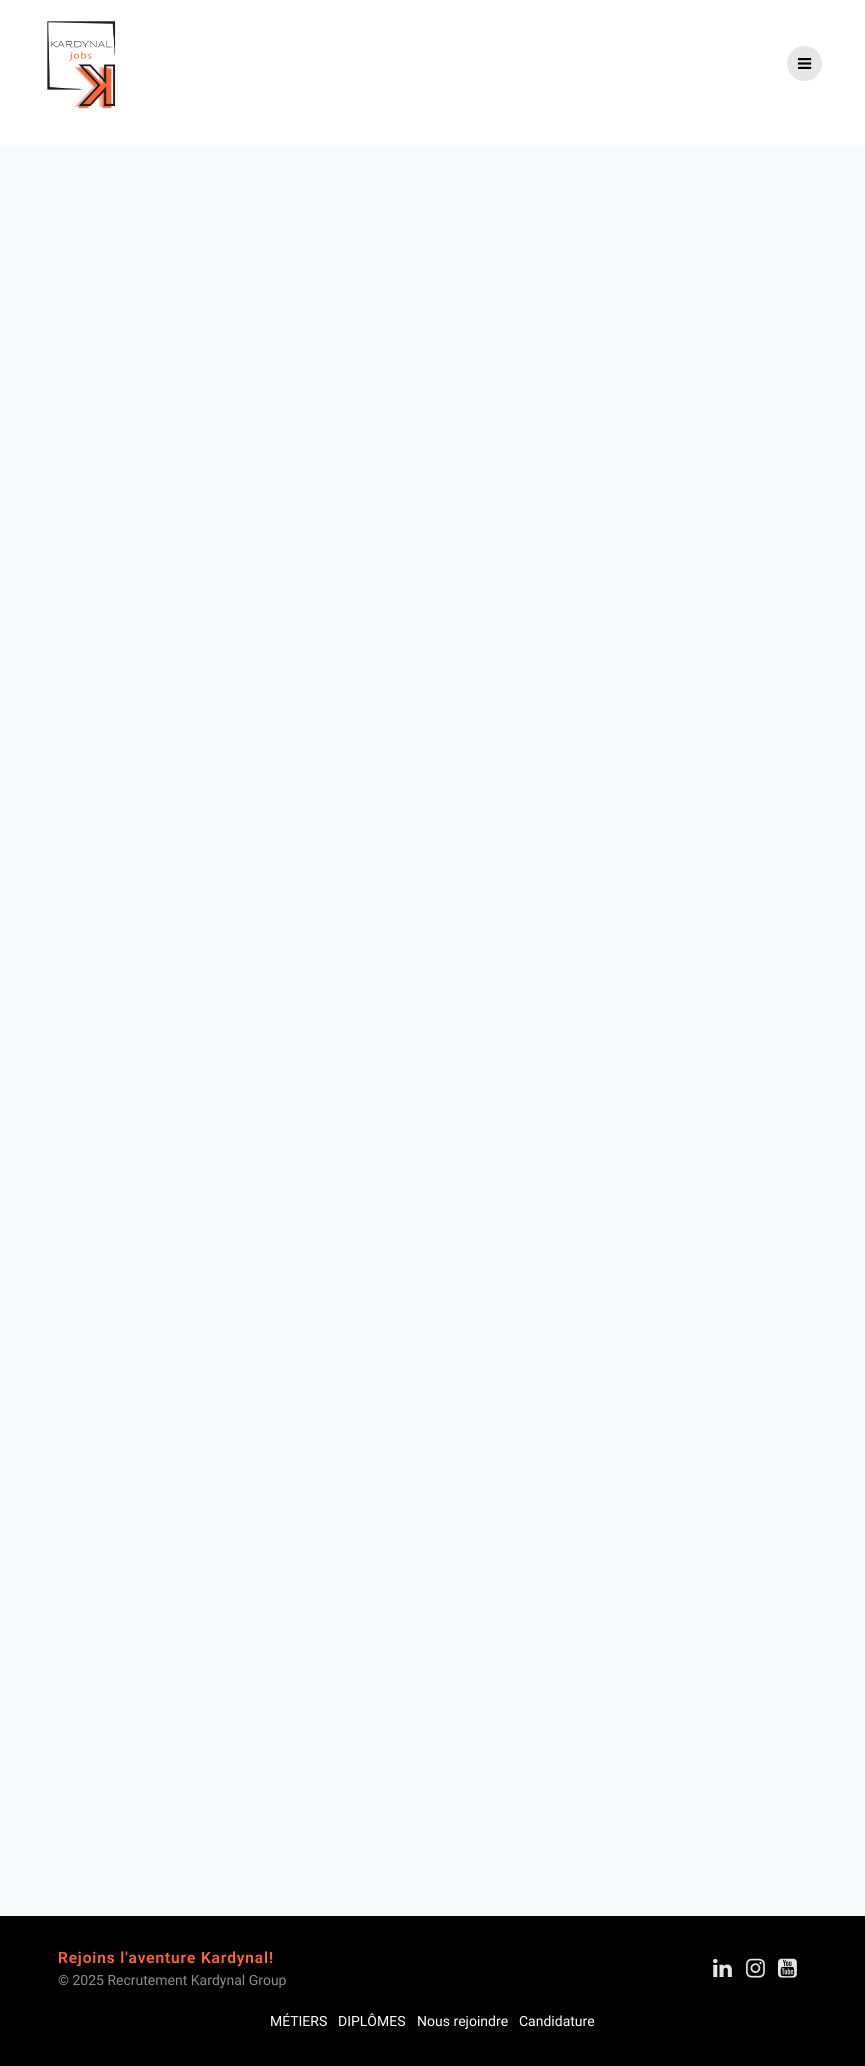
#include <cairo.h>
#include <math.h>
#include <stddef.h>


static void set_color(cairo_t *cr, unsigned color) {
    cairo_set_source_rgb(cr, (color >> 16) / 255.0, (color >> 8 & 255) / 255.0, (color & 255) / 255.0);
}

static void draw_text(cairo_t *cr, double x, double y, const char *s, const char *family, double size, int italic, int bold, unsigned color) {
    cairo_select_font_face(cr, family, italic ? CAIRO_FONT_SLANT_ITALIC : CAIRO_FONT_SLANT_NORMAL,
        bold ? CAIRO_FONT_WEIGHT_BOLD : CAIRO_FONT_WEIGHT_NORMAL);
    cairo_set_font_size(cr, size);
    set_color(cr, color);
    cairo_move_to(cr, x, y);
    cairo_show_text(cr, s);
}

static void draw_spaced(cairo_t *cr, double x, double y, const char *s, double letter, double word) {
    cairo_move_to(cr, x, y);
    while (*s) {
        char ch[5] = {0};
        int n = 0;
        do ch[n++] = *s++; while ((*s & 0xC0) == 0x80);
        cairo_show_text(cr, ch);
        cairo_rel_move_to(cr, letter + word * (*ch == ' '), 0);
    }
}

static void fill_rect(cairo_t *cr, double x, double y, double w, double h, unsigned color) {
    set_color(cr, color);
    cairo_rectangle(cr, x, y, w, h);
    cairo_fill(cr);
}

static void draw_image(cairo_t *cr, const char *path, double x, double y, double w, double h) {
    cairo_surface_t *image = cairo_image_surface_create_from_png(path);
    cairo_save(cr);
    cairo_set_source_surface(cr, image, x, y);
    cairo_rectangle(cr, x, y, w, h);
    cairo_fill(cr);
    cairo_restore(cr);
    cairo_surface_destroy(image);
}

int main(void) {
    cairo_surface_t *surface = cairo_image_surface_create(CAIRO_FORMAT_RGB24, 865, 2066);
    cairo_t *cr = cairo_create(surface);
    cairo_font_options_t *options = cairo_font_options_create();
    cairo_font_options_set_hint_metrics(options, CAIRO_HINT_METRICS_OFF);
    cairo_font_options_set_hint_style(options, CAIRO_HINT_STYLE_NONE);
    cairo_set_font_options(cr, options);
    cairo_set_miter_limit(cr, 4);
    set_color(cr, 0xFFFFFF);
    cairo_paint(cr);
    draw_image(cr, "assets/img1.png", 47, 21, 69, 88);
    set_color(cr, 0xE6E6E6);
    cairo_arc(cr, 804.5, 63.5, 17.5, 0, 2 * M_PI);
    cairo_fill(cr);
    draw_image(cr, "assets/img2.png", 798, 58, 14, 11);
    fill_rect(cr, 0, 145, 865, 1771, 0xF5FAFD);
    fill_rect(cr, 0, 1916, 865, 150, 0x000000);
    cairo_select_font_face(cr, "Roboto SemiBold", CAIRO_FONT_SLANT_NORMAL, CAIRO_FONT_WEIGHT_NORMAL);
    cairo_set_font_size(cr, 15.4);
    set_color(cr, 0xFF6633);
    draw_spaced(cr, 58, 1963, "Rejoins l'aventure Kardynal!", 0.9, 0);
    draw_text(cr, 58, 1985, "© 2025 Recrutement Kardynal Group", "Roboto", 14, 0, 0, 0x8C8C8C);
    draw_image(cr, "assets/img3.png", 713, 1959, 19, 18);
    draw_image(cr, "assets/img4.png", 746, 1958, 19, 20);
    draw_image(cr, "assets/img5.png", 778, 1958, 19, 20);
    draw_text(cr, 270, 2026, "MÉTIERS", "Roboto", 14, 0, 0, 0xFFFFFF);
    draw_text(cr, 338, 2026, "DIPLÔMES", "Roboto", 14, 0, 0, 0xFFFFFF);
    draw_text(cr, 417, 2026, "Nous rejoindre", "Roboto", 14, 0, 0, 0xFFFFFF);
    draw_text(cr, 519, 2026, "Candidature", "Roboto", 14, 0, 0, 0xFFFFFF);
    cairo_surface_write_to_png(surface, "output.png");
    cairo_font_options_destroy(options);
    cairo_destroy(cr);
    cairo_surface_destroy(surface);
    return 0;
}
